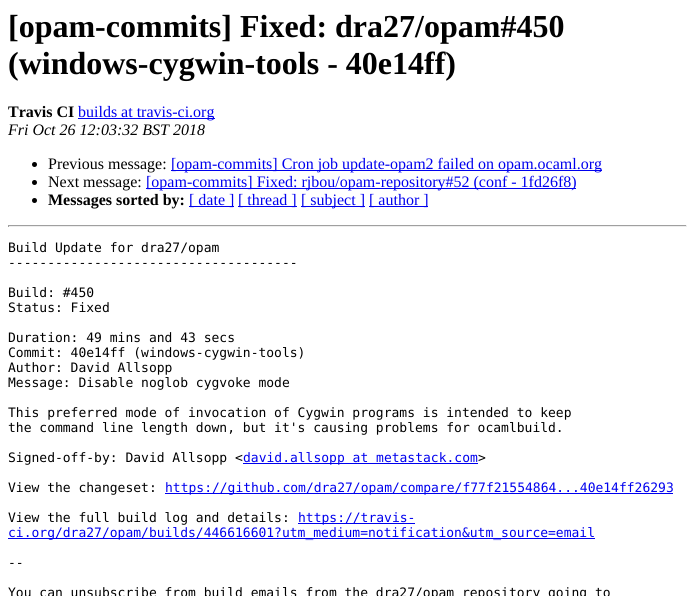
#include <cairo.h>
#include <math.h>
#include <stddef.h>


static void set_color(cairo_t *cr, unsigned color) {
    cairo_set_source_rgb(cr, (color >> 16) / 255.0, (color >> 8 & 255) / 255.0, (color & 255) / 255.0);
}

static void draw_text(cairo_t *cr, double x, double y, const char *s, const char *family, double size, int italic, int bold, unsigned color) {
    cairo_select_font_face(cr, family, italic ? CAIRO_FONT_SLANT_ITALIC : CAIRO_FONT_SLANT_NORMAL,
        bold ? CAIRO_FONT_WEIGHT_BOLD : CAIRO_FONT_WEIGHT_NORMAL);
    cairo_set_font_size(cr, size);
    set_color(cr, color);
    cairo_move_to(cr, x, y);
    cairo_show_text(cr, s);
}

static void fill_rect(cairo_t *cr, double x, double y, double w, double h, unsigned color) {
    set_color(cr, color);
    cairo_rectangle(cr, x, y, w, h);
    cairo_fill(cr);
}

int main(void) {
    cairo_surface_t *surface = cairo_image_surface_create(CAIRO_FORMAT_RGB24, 695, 596);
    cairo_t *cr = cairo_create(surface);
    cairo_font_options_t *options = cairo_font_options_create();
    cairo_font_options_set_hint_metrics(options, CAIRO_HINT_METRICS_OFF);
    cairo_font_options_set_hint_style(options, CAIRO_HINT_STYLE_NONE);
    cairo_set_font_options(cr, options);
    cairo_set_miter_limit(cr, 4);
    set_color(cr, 0xFFFFFF);
    cairo_paint(cr);
    draw_text(cr, 8, 37, "[opam-commits] Fixed: dra27/opam#450", "Liberation Serif", 32, 0, 1, 0x000000);
    draw_text(cr, 8, 74, "(windows-cygwin-tools - 40e14ff)", "Liberation Serif", 32, 0, 1, 0x000000);
    draw_text(cr, 8, 117, "Travis CI", "Liberation Serif", 16, 0, 1, 0x000000);
    fill_rect(cr, 78, 118, 137, 1, 0x0000EE);
    draw_text(cr, 78, 117, "builds at travis-ci.org", "Liberation Serif", 16, 0, 0, 0x0000EE);
    draw_text(cr, 8, 135, "Fri Oct 26 12:03:32 BST 2018", "Liberation Serif", 16, 1, 0, 0x000000);
    cairo_new_path(cr);
    cairo_arc(cr, 34.5, 164.5, 2.5, 0, 2 * M_PI);
    cairo_fill(cr);
    draw_text(cr, 48, 169, "Previous message:", "Liberation Serif", 16, 0, 0, 0x000000);
    fill_rect(cr, 171, 170, 431, 1, 0x0000EE);
    draw_text(cr, 171, 169, "[opam-commits] Cron job update-opam2 failed on opam.ocaml.org", "Liberation Serif", 16, 0, 0, 0x0000EE);
    set_color(cr, 0x000000);
    cairo_new_path(cr);
    cairo_arc(cr, 34.5, 182.5, 2.5, 0, 2 * M_PI);
    cairo_fill(cr);
    draw_text(cr, 48, 187, "Next message:", "Liberation Serif", 16, 0, 0, 0x000000);
    fill_rect(cr, 146, 188, 430, 1, 0x0000EE);
    draw_text(cr, 146, 187, "[opam-commits] Fixed: rjbou/opam-repository#52 (conf - 1fd26f8)", "Liberation Serif", 16, 0, 0, 0x0000EE);
    set_color(cr, 0x000000);
    cairo_new_path(cr);
    cairo_arc(cr, 34.5, 200.5, 2.5, 0, 2 * M_PI);
    cairo_fill(cr);
    draw_text(cr, 48, 205, "Messages sorted by:", "Liberation Serif", 16, 0, 1, 0x000000);
    fill_rect(cr, 189, 206, 45, 1, 0x0000EE);
    draw_text(cr, 189, 205, "[ date ]", "Liberation Serif", 16, 0, 0, 0x0000EE);
    fill_rect(cr, 238, 206, 59, 1, 0x0000EE);
    draw_text(cr, 238, 205, "[ thread ]", "Liberation Serif", 16, 0, 0, 0x0000EE);
    fill_rect(cr, 301, 206, 64, 1, 0x0000EE);
    draw_text(cr, 301, 205, "[ subject ]", "Liberation Serif", 16, 0, 0, 0x0000EE);
    fill_rect(cr, 369, 206, 59, 1, 0x0000EE);
    draw_text(cr, 369, 205, "[ author ]", "Liberation Serif", 16, 0, 0, 0x0000EE);
    fill_rect(cr, 8, 225, 679, 1, 0x9F9F9F);
    fill_rect(cr, 686, 225, 1, 2, 0xEEEEEE);
    fill_rect(cr, 8, 226, 679, 1, 0xEEEEEE);
    fill_rect(cr, 8, 225, 1, 2, 0x9F9F9F);
    draw_text(cr, 8, 252, "Build Update for dra27/opam", "DejaVu Sans Mono", 13, 0, 0, 0x000000);
    draw_text(cr, 8, 267, "-------------------------------------", "DejaVu Sans Mono", 13, 0, 0, 0x000000);
    draw_text(cr, 8, 297, "Build: #450", "DejaVu Sans Mono", 13, 0, 0, 0x000000);
    draw_text(cr, 8, 312, "Status: Fixed", "DejaVu Sans Mono", 13, 0, 0, 0x000000);
    draw_text(cr, 8, 342, "Duration: 49 mins and 43 secs", "DejaVu Sans Mono", 13, 0, 0, 0x000000);
    draw_text(cr, 8, 357, "Commit: 40e14ff (windows-cygwin-tools)", "DejaVu Sans Mono", 13, 0, 0, 0x000000);
    draw_text(cr, 8, 372, "Author: David Allsopp", "DejaVu Sans Mono", 13, 0, 0, 0x000000);
    draw_text(cr, 8, 387, "Message: Disable noglob cygvoke mode", "DejaVu Sans Mono", 13, 0, 0, 0x000000);
    draw_text(cr, 8, 417, "This preferred mode of invocation of Cygwin programs is intended to keep", "DejaVu Sans Mono", 13, 0, 0, 0x000000);
    draw_text(cr, 8, 432, "the command line length down, but it's causing problems for ocamlbuild.", "DejaVu Sans Mono", 13, 0, 0, 0x000000);
    draw_text(cr, 8, 462, "Signed-off-by: David Allsopp <", "DejaVu Sans Mono", 13, 0, 0, 0x000000);
    fill_rect(cr, 243, 463, 235, 1, 0x0000EE);
    draw_text(cr, 243, 462, "david.allsopp at metastack.com", "DejaVu Sans Mono", 13, 0, 0, 0x0000EE);
    draw_text(cr, 478, 462, ">", "DejaVu Sans Mono", 13, 0, 0, 0x000000);
    draw_text(cr, 8, 492, "View the changeset:", "DejaVu Sans Mono", 13, 0, 0, 0x000000);
    fill_rect(cr, 165, 493, 508, 1, 0x0000EE);
    draw_text(cr, 165, 492, "https://github.com/dra27/opam/compare/f77f21554864...40e14ff26293", "DejaVu Sans Mono", 13, 0, 0, 0x0000EE);
    draw_text(cr, 8, 522, "View the full build log and details:", "DejaVu Sans Mono", 13, 0, 0, 0x000000);
    fill_rect(cr, 298, 523, 117, 1, 0x0000EE);
    draw_text(cr, 298, 522, "https://travis-", "DejaVu Sans Mono", 13, 0, 0, 0x0000EE);
    fill_rect(cr, 8, 538, 587, 1, 0x0000EE);
    draw_text(cr, 8, 537, "ci.org/dra27/opam/builds/446616601?utm_medium=notification&utm_source=email", "DejaVu Sans Mono", 13, 0, 0, 0x0000EE);
    draw_text(cr, 8, 567, "--", "DejaVu Sans Mono", 13, 0, 0, 0x000000);
    draw_text(cr, 8, 597, "You can unsubscribe from build emails from the dra27/opam repository going to", "DejaVu Sans Mono", 13, 0, 0, 0x000000);
    cairo_surface_write_to_png(surface, "output.png");
    cairo_font_options_destroy(options);
    cairo_destroy(cr);
    cairo_surface_destroy(surface);
    return 0;
}
